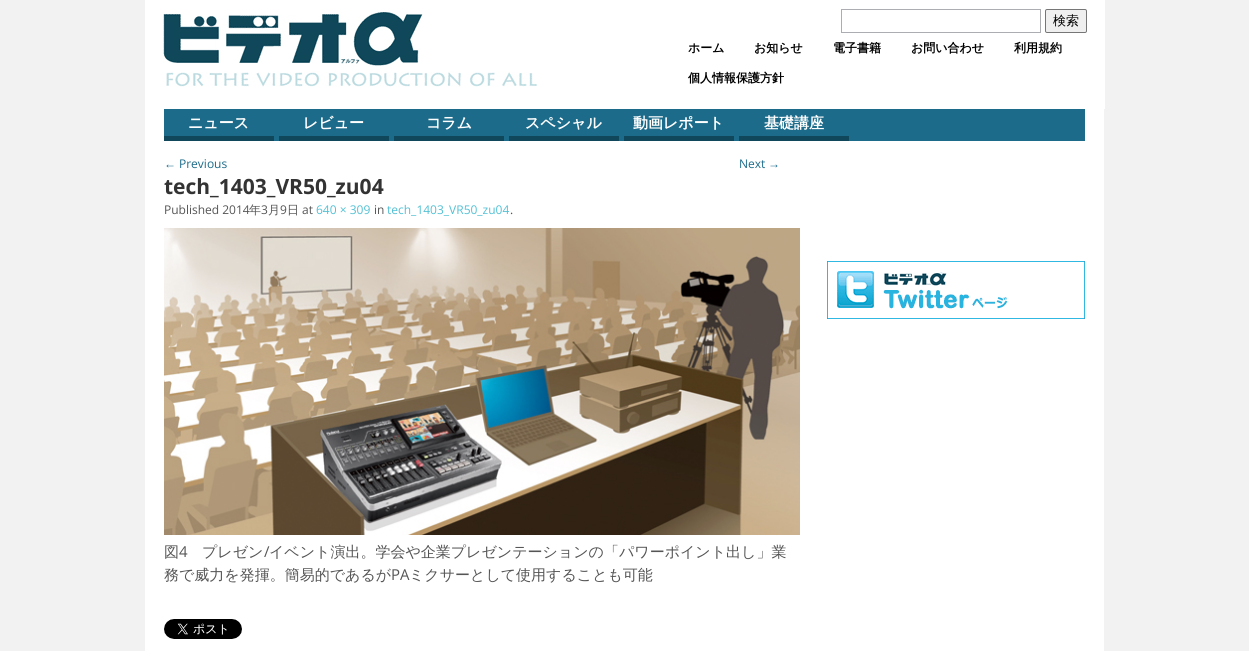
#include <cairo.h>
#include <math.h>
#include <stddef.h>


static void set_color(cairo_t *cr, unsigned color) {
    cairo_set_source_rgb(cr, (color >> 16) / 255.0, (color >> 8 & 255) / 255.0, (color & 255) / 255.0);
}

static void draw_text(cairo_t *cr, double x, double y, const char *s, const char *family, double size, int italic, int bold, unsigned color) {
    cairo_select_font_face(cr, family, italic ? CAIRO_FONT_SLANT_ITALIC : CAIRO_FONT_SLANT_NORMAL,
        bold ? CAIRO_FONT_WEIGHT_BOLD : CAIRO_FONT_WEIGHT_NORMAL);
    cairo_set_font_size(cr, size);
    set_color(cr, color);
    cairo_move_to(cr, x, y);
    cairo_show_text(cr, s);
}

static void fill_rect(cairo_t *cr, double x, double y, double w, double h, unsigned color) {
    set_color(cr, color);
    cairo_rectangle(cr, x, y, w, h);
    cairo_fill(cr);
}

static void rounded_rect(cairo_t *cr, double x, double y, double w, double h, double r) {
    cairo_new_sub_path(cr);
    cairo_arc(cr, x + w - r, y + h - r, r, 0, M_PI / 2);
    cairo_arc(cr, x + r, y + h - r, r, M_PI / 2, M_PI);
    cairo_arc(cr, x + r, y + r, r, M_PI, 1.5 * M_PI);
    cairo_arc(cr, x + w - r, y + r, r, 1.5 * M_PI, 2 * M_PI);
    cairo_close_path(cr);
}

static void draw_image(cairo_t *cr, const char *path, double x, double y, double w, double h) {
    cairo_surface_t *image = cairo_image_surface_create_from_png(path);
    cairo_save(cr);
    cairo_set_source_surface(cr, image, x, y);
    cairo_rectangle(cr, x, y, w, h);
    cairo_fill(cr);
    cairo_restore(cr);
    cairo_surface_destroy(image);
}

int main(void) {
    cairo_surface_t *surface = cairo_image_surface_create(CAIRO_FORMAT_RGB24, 1249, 651);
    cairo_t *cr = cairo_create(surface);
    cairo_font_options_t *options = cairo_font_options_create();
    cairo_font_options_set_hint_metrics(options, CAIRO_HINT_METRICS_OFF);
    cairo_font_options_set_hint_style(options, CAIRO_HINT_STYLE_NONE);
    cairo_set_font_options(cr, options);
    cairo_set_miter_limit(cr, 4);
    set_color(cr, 0xF2F2F2);
    cairo_paint(cr);
    fill_rect(cr, 145, 0, 960, 109, 0xFFFFFF);
    draw_image(cr, "assets/img1.png", 163, 12, 374, 75);
    cairo_rectangle(cr, 841.5, 9.5, 199, 23);
    set_color(cr, 0xABADB3);
    cairo_set_line_width(cr, 1);
    cairo_stroke(cr);
    set_color(cr, 0xEFEFEF);
    rounded_rect(cr, 1045.5, 9.5, 41, 23, 1.5);
    cairo_fill_preserve(cr);
    set_color(cr, 0x767676);
    cairo_stroke(cr);
    draw_text(cr, 1053, 25, "検索", "WenQuanYi Zen Hei Medium", 13, 0, 0, 0x000000);
    draw_text(cr, 688, 52, "ホーム", "WenQuanYi Zen Hei", 12, 0, 1, 0x000000);
    draw_text(cr, 754, 52, "お知らせ", "WenQuanYi Zen Hei", 12, 0, 1, 0x000000);
    draw_text(cr, 833, 52, "電子書籍", "WenQuanYi Zen Hei", 12, 0, 1, 0x000000);
    draw_text(cr, 911, 52, "お問い合わせ", "WenQuanYi Zen Hei", 12, 0, 1, 0x000000);
    draw_text(cr, 1014, 52, "利用規約", "WenQuanYi Zen Hei", 12, 0, 1, 0x000000);
    draw_text(cr, 688, 82, "個人情報保護方針", "WenQuanYi Zen Hei", 12, 0, 1, 0x000000);
    fill_rect(cr, 145, 109, 959, 542, 0xFFFFFF);
    fill_rect(cr, 164, 109, 921, 32, 0x1C6B8A);
    fill_rect(cr, 164, 136, 110, 5, 0x10475B);
    draw_text(cr, 188, 128, "ニュース", "WenQuanYi Zen Hei", 15, 0, 1, 0xFFFFFF);
    fill_rect(cr, 279, 136, 110, 5, 0x10475B);
    draw_text(cr, 303, 128, "レビュー", "WenQuanYi Zen Hei", 15, 0, 1, 0xFFFFFF);
    fill_rect(cr, 394, 136, 110, 5, 0x10475B);
    draw_text(cr, 426, 128, "コラム", "WenQuanYi Zen Hei", 15, 0, 1, 0xFFFFFF);
    fill_rect(cr, 509, 136, 110, 5, 0x10475B);
    draw_text(cr, 525, 128, "スペシャル", "WenQuanYi Zen Hei", 15, 0, 1, 0xFFFFFF);
    fill_rect(cr, 624, 136, 110, 5, 0x10475B);
    draw_text(cr, 633, 128, "動画レポート", "WenQuanYi Zen Hei", 15, 0, 1, 0xFFFFFF);
    fill_rect(cr, 739, 136, 110, 5, 0x10475B);
    draw_text(cr, 764, 128, "基礎講座", "WenQuanYi Zen Hei", 15, 0, 1, 0xFFFFFF);
    draw_text(cr, 164, 168, "←", "Liberation Sans", 12, 0, 0, 0x1C6B8A);
    draw_text(cr, 179, 168, "Previous", "Open Sans", 12, 0, 0, 0x1C6B8A);
    draw_text(cr, 739, 168, "Next", "Open Sans", 12, 0, 0, 0x1C6B8A);
    draw_text(cr, 768, 168, "→", "Liberation Sans", 12, 0, 0, 0x1C6B8A);
    draw_text(cr, 164, 194, "tech_1403_VR50_zu04", "Open Sans", 21, 0, 1, 0x333333);
    draw_text(cr, 164, 214, "Published 2014", "Open Sans", 12, 0, 0, 0x555555);
    draw_text(cr, 249, 214, "年", "WenQuanYi Zen Hei Medium", 12, 0, 0, 0x555555);
    draw_text(cr, 261, 214, "3", "Open Sans", 12, 0, 0, 0x555555);
    draw_text(cr, 268, 214, "月", "WenQuanYi Zen Hei Medium", 12, 0, 0, 0x555555);
    draw_text(cr, 280, 214, "9", "Open Sans", 12, 0, 0, 0x555555);
    draw_text(cr, 287, 214, "日", "WenQuanYi Zen Hei Medium", 12, 0, 0, 0x555555);
    draw_text(cr, 302, 214, "at", "Open Sans", 12, 0, 0, 0x555555);
    draw_text(cr, 316, 214, "640 × 309", "Open Sans", 12, 0, 0, 0x52C0D4);
    draw_text(cr, 374, 214, "in", "Open Sans", 12, 0, 0, 0x555555);
    draw_text(cr, 387, 214, "tech_1403_VR50_zu04", "Open Sans", 12, 0, 0, 0x52C0D4);
    draw_text(cr, 510, 214, ".", "Open Sans", 12, 0, 0, 0x555555);
    draw_image(cr, "assets/img2.png", 164, 228, 636, 307);
    draw_text(cr, 164, 557, "図", "WenQuanYi Zen Hei Medium", 15, 0, 0, 0x555555);
    draw_text(cr, 179, 557, "4", "Open Sans", 15, 0, 0, 0x555555);
    draw_text(cr, 202, 557, "プレゼン", "WenQuanYi Zen Hei Medium", 15, 0, 0, 0x555555);
    draw_text(cr, 264, 557, "/", "Open Sans", 15, 0, 0, 0x555555);
    draw_text(cr, 269, 557, "イベント演出。学会や企業プレゼンテーションの「パワーポイント出し」業", "WenQuanYi Zen Hei Medium", 15, 0, 0, 0x555555);
    draw_text(cr, 164, 580, "務で威力を発揮。簡易的であるが", "WenQuanYi Zen Hei Medium", 15, 0, 0, 0x555555);
    draw_text(cr, 391, 580, "PA", "Open Sans", 15, 0, 0, 0x555555);
    draw_text(cr, 409, 580, "ミクサーとして使用することも可能", "WenQuanYi Zen Hei Medium", 15, 0, 0, 0x555555);
    draw_image(cr, "assets/img3.png", 164, 619, 78, 20);
    draw_image(cr, "assets/img4.png", 827, 261, 258, 58);
    cairo_surface_write_to_png(surface, "output.png");
    cairo_font_options_destroy(options);
    cairo_destroy(cr);
    cairo_surface_destroy(surface);
    return 0;
}
